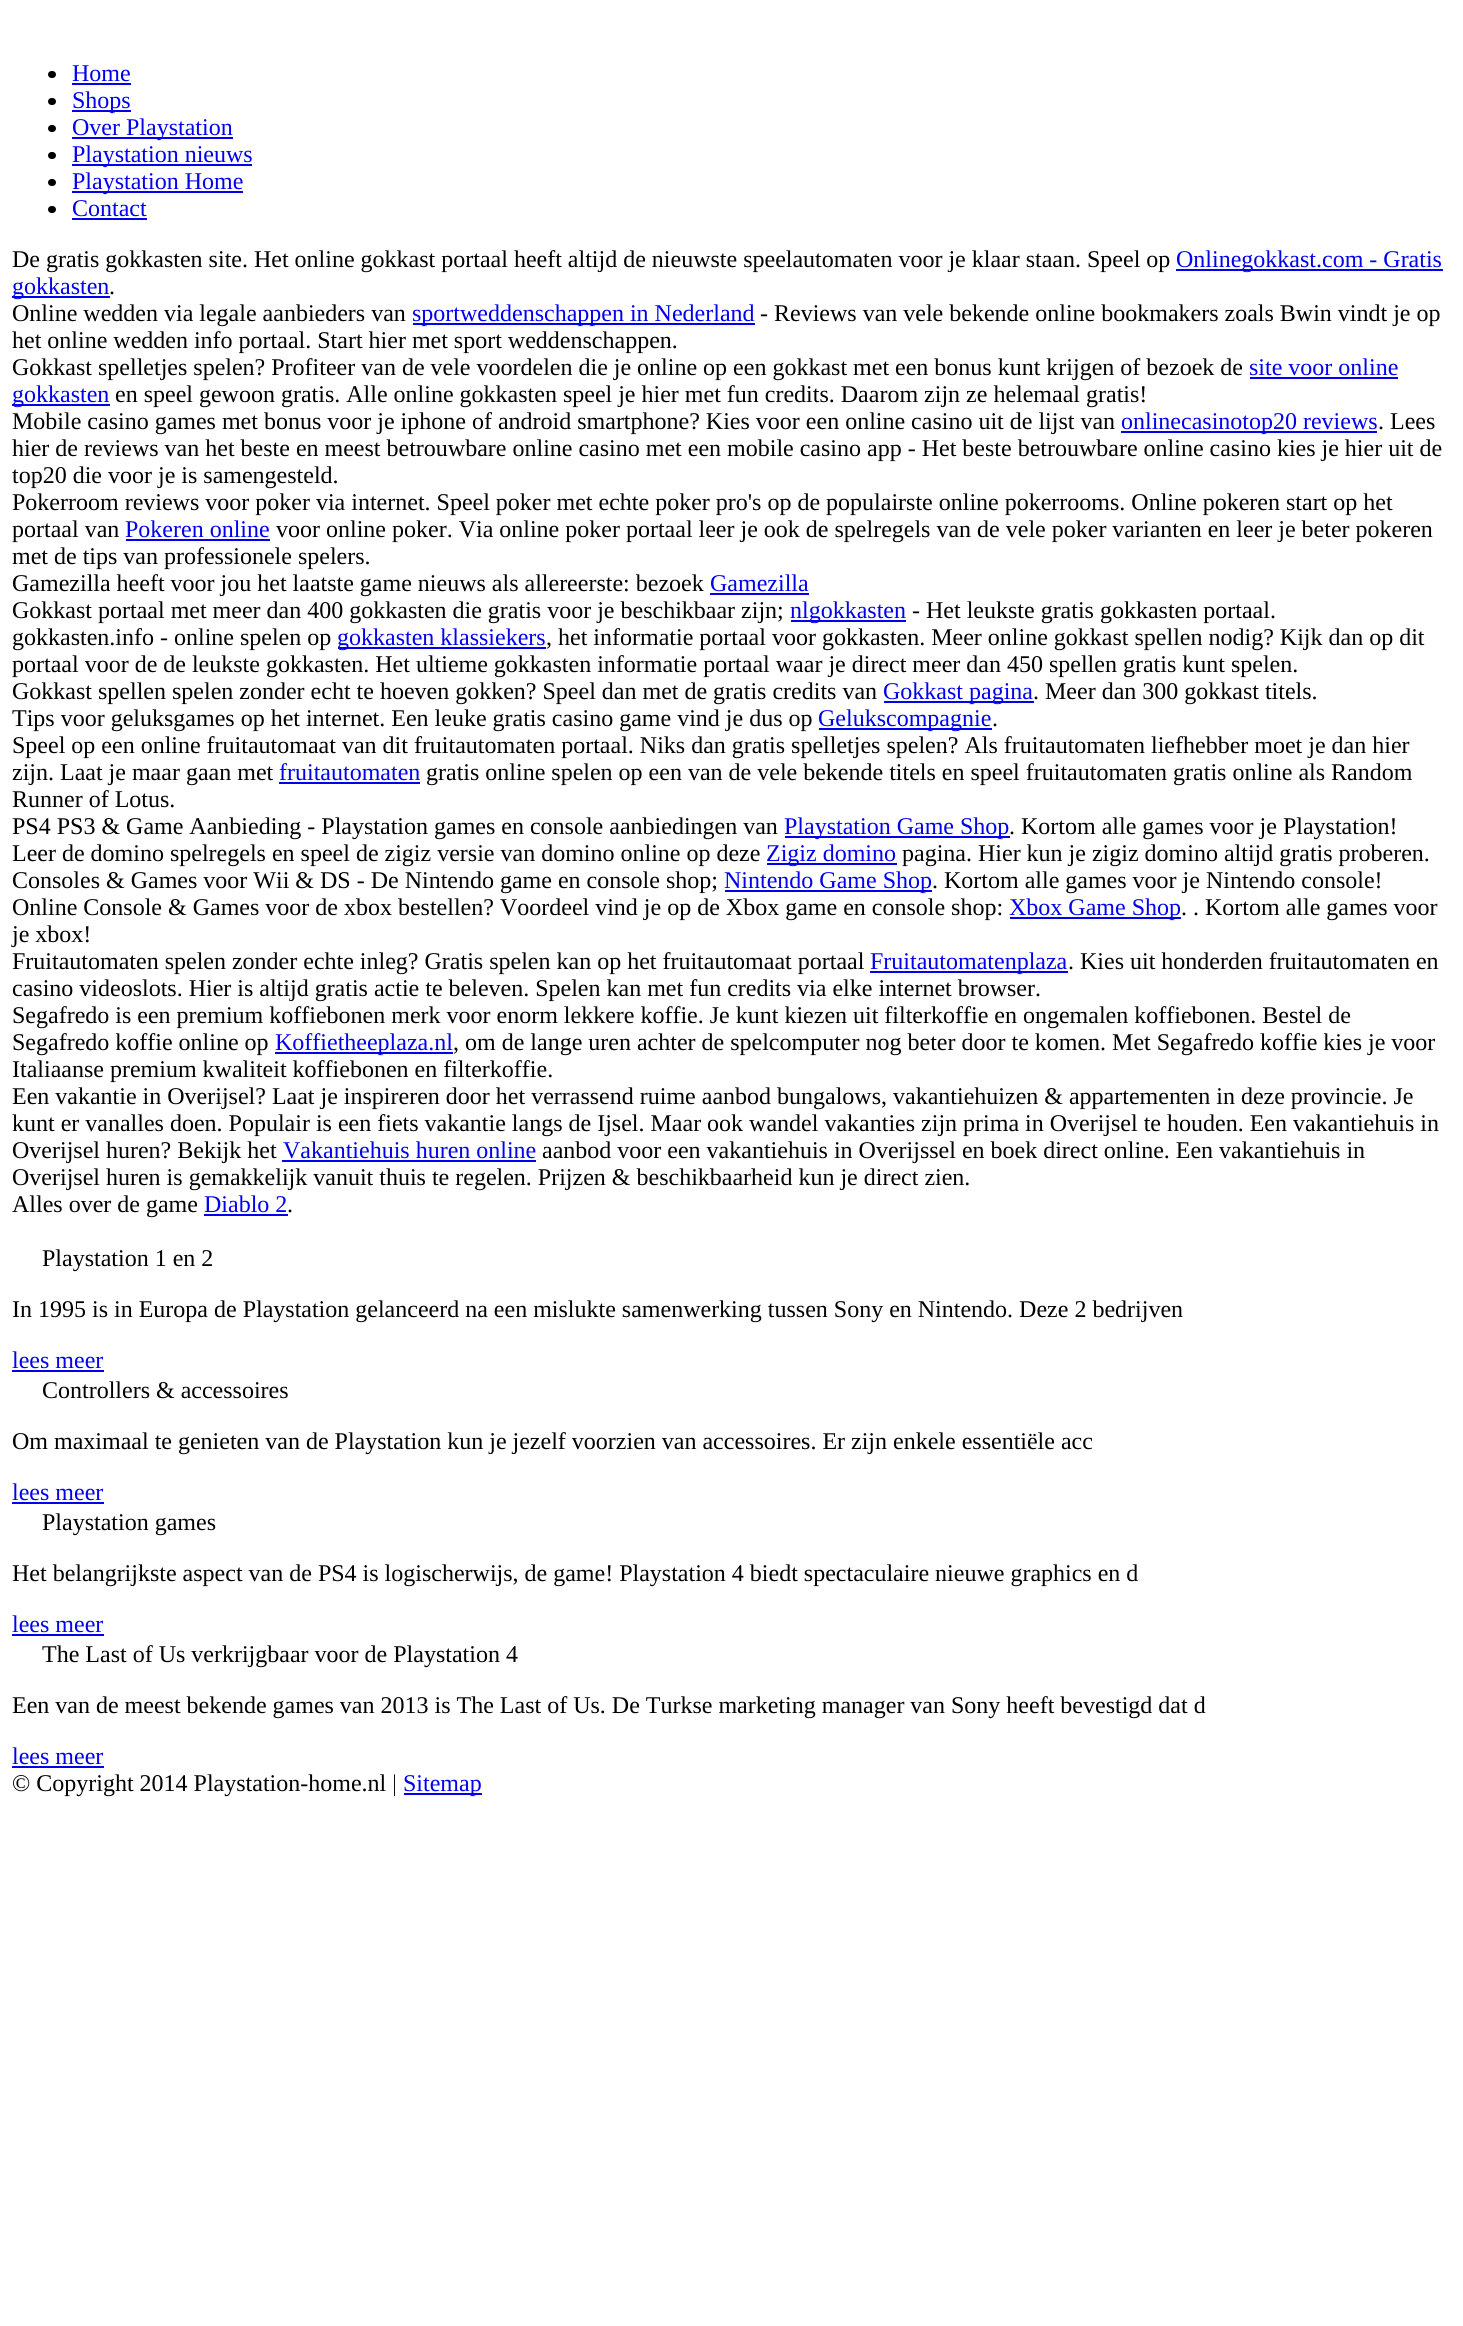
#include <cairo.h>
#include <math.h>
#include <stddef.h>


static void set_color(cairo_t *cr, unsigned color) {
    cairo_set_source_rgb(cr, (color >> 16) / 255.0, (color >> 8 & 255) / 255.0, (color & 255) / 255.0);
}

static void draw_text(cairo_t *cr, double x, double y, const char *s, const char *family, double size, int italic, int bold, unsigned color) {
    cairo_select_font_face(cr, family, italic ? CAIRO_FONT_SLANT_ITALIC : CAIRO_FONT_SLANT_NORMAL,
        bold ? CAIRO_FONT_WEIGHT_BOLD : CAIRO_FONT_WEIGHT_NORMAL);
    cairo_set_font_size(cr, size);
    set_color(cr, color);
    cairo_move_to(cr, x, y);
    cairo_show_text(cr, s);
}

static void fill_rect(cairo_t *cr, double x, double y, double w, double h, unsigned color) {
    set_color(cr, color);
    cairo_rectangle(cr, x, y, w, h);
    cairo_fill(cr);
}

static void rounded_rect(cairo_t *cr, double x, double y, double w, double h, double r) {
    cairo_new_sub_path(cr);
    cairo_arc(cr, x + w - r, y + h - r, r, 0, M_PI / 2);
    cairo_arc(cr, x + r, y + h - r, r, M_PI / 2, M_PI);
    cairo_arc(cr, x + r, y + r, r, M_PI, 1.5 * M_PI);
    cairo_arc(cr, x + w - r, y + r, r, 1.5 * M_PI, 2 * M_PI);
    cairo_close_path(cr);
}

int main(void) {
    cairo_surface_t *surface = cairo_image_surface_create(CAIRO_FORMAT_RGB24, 1463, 2326);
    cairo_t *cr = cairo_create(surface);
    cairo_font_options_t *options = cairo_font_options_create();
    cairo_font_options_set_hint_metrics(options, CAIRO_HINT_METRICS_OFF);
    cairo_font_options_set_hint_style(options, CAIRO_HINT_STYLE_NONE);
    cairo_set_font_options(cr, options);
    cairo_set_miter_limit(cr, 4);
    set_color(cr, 0xFFFFFF);
    cairo_paint(cr);
    set_color(cr, 0x000000);
    rounded_rect(cr, 48, 71, 8, 7, 3.5);
    cairo_fill(cr);
    draw_text(cr, 72, 81, "Home", "Liberation Serif", 24, 0, 0, 0x0000EE);
    fill_rect(cr, 72, 83, 59, 2, 0x0000EE);
    set_color(cr, 0x000000);
    rounded_rect(cr, 48, 98, 8, 7, 3.5);
    cairo_fill(cr);
    fill_rect(cr, 72, 110, 59, 2, 0x0000EE);
    draw_text(cr, 72, 108, "Shops", "Liberation Serif", 24, 0, 0, 0x0000EE);
    set_color(cr, 0x000000);
    rounded_rect(cr, 48, 125, 8, 7, 3.5);
    cairo_fill(cr);
    fill_rect(cr, 72, 137, 161, 2, 0x0000EE);
    draw_text(cr, 72, 135, "Over Playstation", "Liberation Serif", 24, 0, 0, 0x0000EE);
    set_color(cr, 0x000000);
    rounded_rect(cr, 48, 152, 8, 7, 3.5);
    cairo_fill(cr);
    fill_rect(cr, 72, 164, 180, 2, 0x0000EE);
    draw_text(cr, 72, 162, "Playstation nieuws", "Liberation Serif", 24, 0, 0, 0x0000EE);
    set_color(cr, 0x000000);
    rounded_rect(cr, 48, 179, 8, 7, 3.5);
    cairo_fill(cr);
    fill_rect(cr, 72, 191, 171, 2, 0x0000EE);
    draw_text(cr, 72, 189, "Playstation Home", "Liberation Serif", 24, 0, 0, 0x0000EE);
    set_color(cr, 0x000000);
    rounded_rect(cr, 48, 206, 8, 7, 3.5);
    cairo_fill(cr);
    draw_text(cr, 72, 216, "Contact", "Liberation Serif", 24, 0, 0, 0x0000EE);
    fill_rect(cr, 72, 218, 75, 2, 0x0000EE);
    draw_text(cr, 12, 267, "De gratis gokkasten site. Het online gokkast portaal heeft altijd de nieuwste speelautomaten voor je klaar staan. Speel op", "Liberation Serif", 24, 0, 0, 0x000000);
    fill_rect(cr, 1176, 269, 267, 2, 0x0000EE);
    draw_text(cr, 1176, 267, "Onlinegokkast.com - Gratis", "Liberation Serif", 24, 0, 0, 0x0000EE);
    fill_rect(cr, 12, 296, 98, 2, 0x0000EE);
    draw_text(cr, 12, 294, "gokkasten", "Liberation Serif", 24, 0, 0, 0x0000EE);
    draw_text(cr, 109, 294, ".", "Liberation Serif", 24, 0, 0, 0x000000);
    draw_text(cr, 12, 321, "Online wedden via legale aanbieders van", "Liberation Serif", 24, 0, 0, 0x000000);
    fill_rect(cr, 413, 323, 342, 2, 0x0000EE);
    draw_text(cr, 412, 321, "sportweddenschappen in Nederland", "Liberation Serif", 24, 0, 0, 0x0000EE);
    draw_text(cr, 760, 321, "- Reviews van vele bekende online bookmakers zoals Bwin vindt je op", "Liberation Serif", 24, 0, 0, 0x000000);
    draw_text(cr, 12, 348, "het online wedden info portaal. Start hier met sport weddenschappen.", "Liberation Serif", 24, 0, 0, 0x000000);
    draw_text(cr, 12, 375, "Gokkast spelletjes spelen? Profiteer van de vele voordelen die je online op een gokkast met een bonus kunt krijgen of bezoek de", "Liberation Serif", 24, 0, 0, 0x000000);
    draw_text(cr, 1249, 375, "site voor online", "Liberation Serif", 24, 0, 0, 0x0000EE);
    fill_rect(cr, 1250, 377, 148, 2, 0x0000EE);
    fill_rect(cr, 12, 404, 98, 2, 0x0000EE);
    draw_text(cr, 12, 402, "gokkasten", "Liberation Serif", 24, 0, 0, 0x0000EE);
    draw_text(cr, 115, 402, "en speel gewoon gratis. Alle online gokkasten speel je hier met fun credits. Daarom zijn ze helemaal gratis!", "Liberation Serif", 24, 0, 0, 0x000000);
    draw_text(cr, 12, 429, "Mobile casino games met bonus voor je iphone of android smartphone? Kies voor een online casino uit de lijst van", "Liberation Serif", 24, 0, 0, 0x000000);
    fill_rect(cr, 1121, 431, 256, 2, 0x0000EE);
    draw_text(cr, 1121, 429, "onlinecasinotop20 reviews", "Liberation Serif", 24, 0, 0, 0x0000EE);
    draw_text(cr, 1378, 429, ". Lees", "Liberation Serif", 24, 0, 0, 0x000000);
    draw_text(cr, 12, 456, "hier de reviews van het beste en meest betrouwbare online casino met een mobile casino app - Het beste betrouwbare online casino kies je hier uit de", "Liberation Serif", 24, 0, 0, 0x000000);
    draw_text(cr, 12, 483, "top20 die voor je is samengesteld.", "Liberation Serif", 24, 0, 0, 0x000000);
    draw_text(cr, 12, 510, "Pokerroom reviews voor poker via internet. Speel poker met echte poker pro's op de populairste online pokerrooms. Online pokeren start op het", "Liberation Serif", 24, 0, 0, 0x000000);
    draw_text(cr, 12, 537, "portaal van", "Liberation Serif", 24, 0, 0, 0x000000);
    draw_text(cr, 125, 537, "Pokeren online", "Liberation Serif", 24, 0, 0, 0x0000EE);
    fill_rect(cr, 126, 539, 144, 2, 0x0000EE);
    draw_text(cr, 276, 537, "voor online poker. Via online poker portaal leer je ook de spelregels van de vele poker varianten en leer je beter pokeren", "Liberation Serif", 24, 0, 0, 0x000000);
    draw_text(cr, 12, 564, "met de tips van professionele spelers.", "Liberation Serif", 24, 0, 0, 0x000000);
    draw_text(cr, 12, 591, "Gamezilla heeft voor jou het laatste game nieuws als allereerste: bezoek", "Liberation Serif", 24, 0, 0, 0x000000);
    draw_text(cr, 710, 591, "Gamezilla", "Liberation Serif", 24, 0, 0, 0x0000EE);
    fill_rect(cr, 710, 593, 99, 2, 0x0000EE);
    draw_text(cr, 12, 618, "Gokkast portaal met meer dan 400 gokkasten die gratis voor je beschikbaar zijn;", "Liberation Serif", 24, 0, 0, 0x000000);
    fill_rect(cr, 791, 620, 115, 2, 0x0000EE);
    draw_text(cr, 790, 618, "nlgokkasten", "Liberation Serif", 24, 0, 0, 0x0000EE);
    draw_text(cr, 912, 618, "- Het leukste gratis gokkasten portaal.", "Liberation Serif", 24, 0, 0, 0x000000);
    draw_text(cr, 12, 645, "gokkasten.info - online spelen op", "Liberation Serif", 24, 0, 0, 0x000000);
    fill_rect(cr, 338, 647, 208, 2, 0x0000EE);
    draw_text(cr, 337, 645, "gokkasten klassiekers", "Liberation Serif", 24, 0, 0, 0x0000EE);
    draw_text(cr, 546, 645, ", het informatie portaal voor gokkasten. Meer online gokkast spellen nodig? Kijk dan op dit", "Liberation Serif", 24, 0, 0, 0x000000);
    draw_text(cr, 12, 672, "portaal voor de de leukste gokkasten. Het ultieme gokkasten informatie portaal waar je direct meer dan 450 spellen gratis kunt spelen.", "Liberation Serif", 24, 0, 0, 0x000000);
    draw_text(cr, 12, 699, "Gokkast spellen spelen zonder echt te hoeven gokken? Speel dan met de gratis credits van", "Liberation Serif", 24, 0, 0, 0x000000);
    fill_rect(cr, 884, 701, 150, 2, 0x0000EE);
    draw_text(cr, 883, 699, "Gokkast pagina", "Liberation Serif", 24, 0, 0, 0x0000EE);
    draw_text(cr, 1033, 699, ". Meer dan 300 gokkast titels.", "Liberation Serif", 24, 0, 0, 0x000000);
    draw_text(cr, 12, 726, "Tips voor geluksgames op het internet. Een leuke gratis casino game vind je dus op", "Liberation Serif", 24, 0, 0, 0x000000);
    fill_rect(cr, 819, 728, 173, 2, 0x0000EE);
    draw_text(cr, 818, 726, "Gelukscompagnie", "Liberation Serif", 24, 0, 0, 0x0000EE);
    draw_text(cr, 992, 726, ".", "Liberation Serif", 24, 0, 0, 0x000000);
    draw_text(cr, 12, 753, "Speel op een online fruitautomaat van dit fruitautomaten portaal. Niks dan gratis spelletjes spelen? Als fruitautomaten liefhebber moet je dan hier", "Liberation Serif", 24, 0, 0, 0x000000);
    draw_text(cr, 12, 780, "zijn. Laat je maar gaan met", "Liberation Serif", 24, 0, 0, 0x000000);
    draw_text(cr, 279, 780, "fruitautomaten", "Liberation Serif", 24, 0, 0, 0x0000EE);
    fill_rect(cr, 279, 782, 141, 2, 0x0000EE);
    draw_text(cr, 426, 780, "gratis online spelen op een van de vele bekende titels en speel fruitautomaten gratis online als Random", "Liberation Serif", 24, 0, 0, 0x000000);
    draw_text(cr, 12, 807, "Runner of Lotus.", "Liberation Serif", 24, 0, 0, 0x000000);
    draw_text(cr, 12, 834, "PS4 PS3 & Game Aanbieding - Playstation games en console aanbiedingen van", "Liberation Serif", 24, 0, 0, 0x000000);
    fill_rect(cr, 785, 836, 225, 2, 0x0000EE);
    draw_text(cr, 784, 834, "Playstation Game Shop", "Liberation Serif", 24, 0, 0, 0x0000EE);
    draw_text(cr, 1009, 834, ". Kortom alle games voor je Playstation!", "Liberation Serif", 24, 0, 0, 0x000000);
    draw_text(cr, 12, 861, "Leer de domino spelregels en speel de zigiz versie van domino online op deze", "Liberation Serif", 24, 0, 0, 0x000000);
    fill_rect(cr, 767, 863, 130, 2, 0x0000EE);
    draw_text(cr, 766, 861, "Zigiz domino", "Liberation Serif", 24, 0, 0, 0x0000EE);
    draw_text(cr, 902, 861, "pagina. Hier kun je zigiz domino altijd gratis proberen.", "Liberation Serif", 24, 0, 0, 0x000000);
    draw_text(cr, 12, 888, "Consoles & Games voor Wii & DS - De Nintendo game en console shop;", "Liberation Serif", 24, 0, 0, 0x000000);
    fill_rect(cr, 725, 890, 207, 2, 0x0000EE);
    draw_text(cr, 724, 888, "Nintendo Game Shop", "Liberation Serif", 24, 0, 0, 0x0000EE);
    draw_text(cr, 932, 888, ". Kortom alle games voor je Nintendo console!", "Liberation Serif", 24, 0, 0, 0x000000);
    draw_text(cr, 12, 915, "Online Console & Games voor de xbox bestellen? Voordeel vind je op de Xbox game en console shop:", "Liberation Serif", 24, 0, 0, 0x000000);
    fill_rect(cr, 1010, 917, 171, 2, 0x0000EE);
    draw_text(cr, 1009, 915, "Xbox Game Shop", "Liberation Serif", 24, 0, 0, 0x0000EE);
    draw_text(cr, 1181, 915, ". . Kortom alle games voor", "Liberation Serif", 24, 0, 0, 0x000000);
    draw_text(cr, 12, 942, "je xbox!", "Liberation Serif", 24, 0, 0, 0x000000);
    draw_text(cr, 12, 969, "Fruitautomaten spelen zonder echte inleg? Gratis spelen kan op het fruitautomaat portaal", "Liberation Serif", 24, 0, 0, 0x000000);
    fill_rect(cr, 870, 971, 198, 2, 0x0000EE);
    draw_text(cr, 870, 969, "Fruitautomatenplaza", "Liberation Serif", 24, 0, 0, 0x0000EE);
    draw_text(cr, 1068, 969, ". Kies uit honderden fruitautomaten en", "Liberation Serif", 24, 0, 0, 0x000000);
    draw_text(cr, 12, 996, "casino videoslots. Hier is altijd gratis actie te beleven. Spelen kan met fun credits via elke internet browser.", "Liberation Serif", 24, 0, 0, 0x000000);
    draw_text(cr, 12, 1023, "Segafredo is een premium koffiebonen merk voor enorm lekkere koffie. Je kunt kiezen uit filterkoffie en ongemalen koffiebonen. Bestel de", "Liberation Serif", 24, 0, 0, 0x000000);
    draw_text(cr, 12, 1050, "Segafredo koffie online op", "Liberation Serif", 24, 0, 0, 0x000000);
    fill_rect(cr, 275, 1052, 178, 2, 0x0000EE);
    draw_text(cr, 275, 1050, "Koffietheeplaza.nl", "Liberation Serif", 24, 0, 0, 0x0000EE);
    draw_text(cr, 453, 1050, ", om de lange uren achter de spelcomputer nog beter door te komen. Met Segafredo koffie kies je voor", "Liberation Serif", 24, 0, 0, 0x000000);
    draw_text(cr, 12, 1077, "Italiaanse premium kwaliteit koffiebonen en filterkoffie.", "Liberation Serif", 24, 0, 0, 0x000000);
    draw_text(cr, 12, 1104, "Een vakantie in Overijsel? Laat je inspireren door het verrassend ruime aanbod bungalows, vakantiehuizen & appartementen in deze provincie. Je", "Liberation Serif", 24, 0, 0, 0x000000);
    draw_text(cr, 12, 1131, "kunt er vanalles doen. Populair is een fiets vakantie langs de Ijsel. Maar ook wandel vakanties zijn prima in Overijsel te houden. Een vakantiehuis in", "Liberation Serif", 24, 0, 0, 0x000000);
    draw_text(cr, 12, 1158, "Overijsel huren? Bekijk het", "Liberation Serif", 24, 0, 0, 0x000000);
    draw_text(cr, 283, 1158, "Vakantiehuis huren online", "Liberation Serif", 24, 0, 0, 0x0000EE);
    fill_rect(cr, 282, 1160, 254, 2, 0x0000EE);
    draw_text(cr, 542, 1158, "aanbod voor een vakantiehuis in Overijssel en boek direct online. Een vakantiehuis in", "Liberation Serif", 24, 0, 0, 0x000000);
    draw_text(cr, 12, 1185, "Overijsel huren is gemakkelijk vanuit thuis te regelen. Prijzen & beschikbaarheid kun je direct zien.", "Liberation Serif", 24, 0, 0, 0x000000);
    draw_text(cr, 12, 1212, "Alles over de game", "Liberation Serif", 24, 0, 0, 0x000000);
    draw_text(cr, 204, 1212, "Diablo 2", "Liberation Serif", 24, 0, 0, 0x0000EE);
    fill_rect(cr, 204, 1214, 84, 2, 0x0000EE);
    draw_text(cr, 287, 1212, ".", "Liberation Serif", 24, 0, 0, 0x000000);
    draw_text(cr, 42, 1266, "Playstation 1 en 2", "Liberation Serif", 24, 0, 0, 0x000000);
    draw_text(cr, 12, 1317, "In 1995 is in Europa de Playstation gelanceerd na een mislukte samenwerking tussen Sony en Nintendo. Deze 2 bedrijven", "Liberation Serif", 24, 0, 0, 0x000000);
    draw_text(cr, 12, 1368, "lees meer", "Liberation Serif", 24, 0, 0, 0x0000EE);
    fill_rect(cr, 12, 1370, 92, 2, 0x0000EE);
    draw_text(cr, 42, 1398, "Controllers & accessoires", "Liberation Serif", 24, 0, 0, 0x000000);
    draw_text(cr, 12, 1449, "Om maximaal te genieten van de Playstation kun je jezelf voorzien van accessoires. Er zijn enkele essentiële acc", "Liberation Serif", 24, 0, 0, 0x000000);
    draw_text(cr, 12, 1500, "lees meer", "Liberation Serif", 24, 0, 0, 0x0000EE);
    fill_rect(cr, 12, 1502, 92, 2, 0x0000EE);
    draw_text(cr, 42, 1530, "Playstation games", "Liberation Serif", 24, 0, 0, 0x000000);
    draw_text(cr, 12, 1581, "Het belangrijkste aspect van de PS4 is logischerwijs, de game! Playstation 4 biedt spectaculaire nieuwe graphics en d", "Liberation Serif", 24, 0, 0, 0x000000);
    draw_text(cr, 12, 1632, "lees meer", "Liberation Serif", 24, 0, 0, 0x0000EE);
    fill_rect(cr, 12, 1634, 92, 2, 0x0000EE);
    draw_text(cr, 42, 1662, "The Last of Us verkrijgbaar voor de Playstation 4", "Liberation Serif", 24, 0, 0, 0x000000);
    draw_text(cr, 12, 1713, "Een van de meest bekende games van 2013 is The Last of Us. De Turkse marketing manager van Sony heeft bevestigd dat d", "Liberation Serif", 24, 0, 0, 0x000000);
    draw_text(cr, 12, 1764, "lees meer", "Liberation Serif", 24, 0, 0, 0x0000EE);
    fill_rect(cr, 12, 1766, 92, 2, 0x0000EE);
    draw_text(cr, 12, 1791, "© Copyright 2014 Playstation-home.nl |", "Liberation Serif", 24, 0, 0, 0x000000);
    fill_rect(cr, 404, 1793, 78, 2, 0x0000EE);
    draw_text(cr, 403, 1791, "Sitemap", "Liberation Serif", 24, 0, 0, 0x0000EE);
    cairo_surface_write_to_png(surface, "output.png");
    cairo_font_options_destroy(options);
    cairo_destroy(cr);
    cairo_surface_destroy(surface);
    return 0;
}
